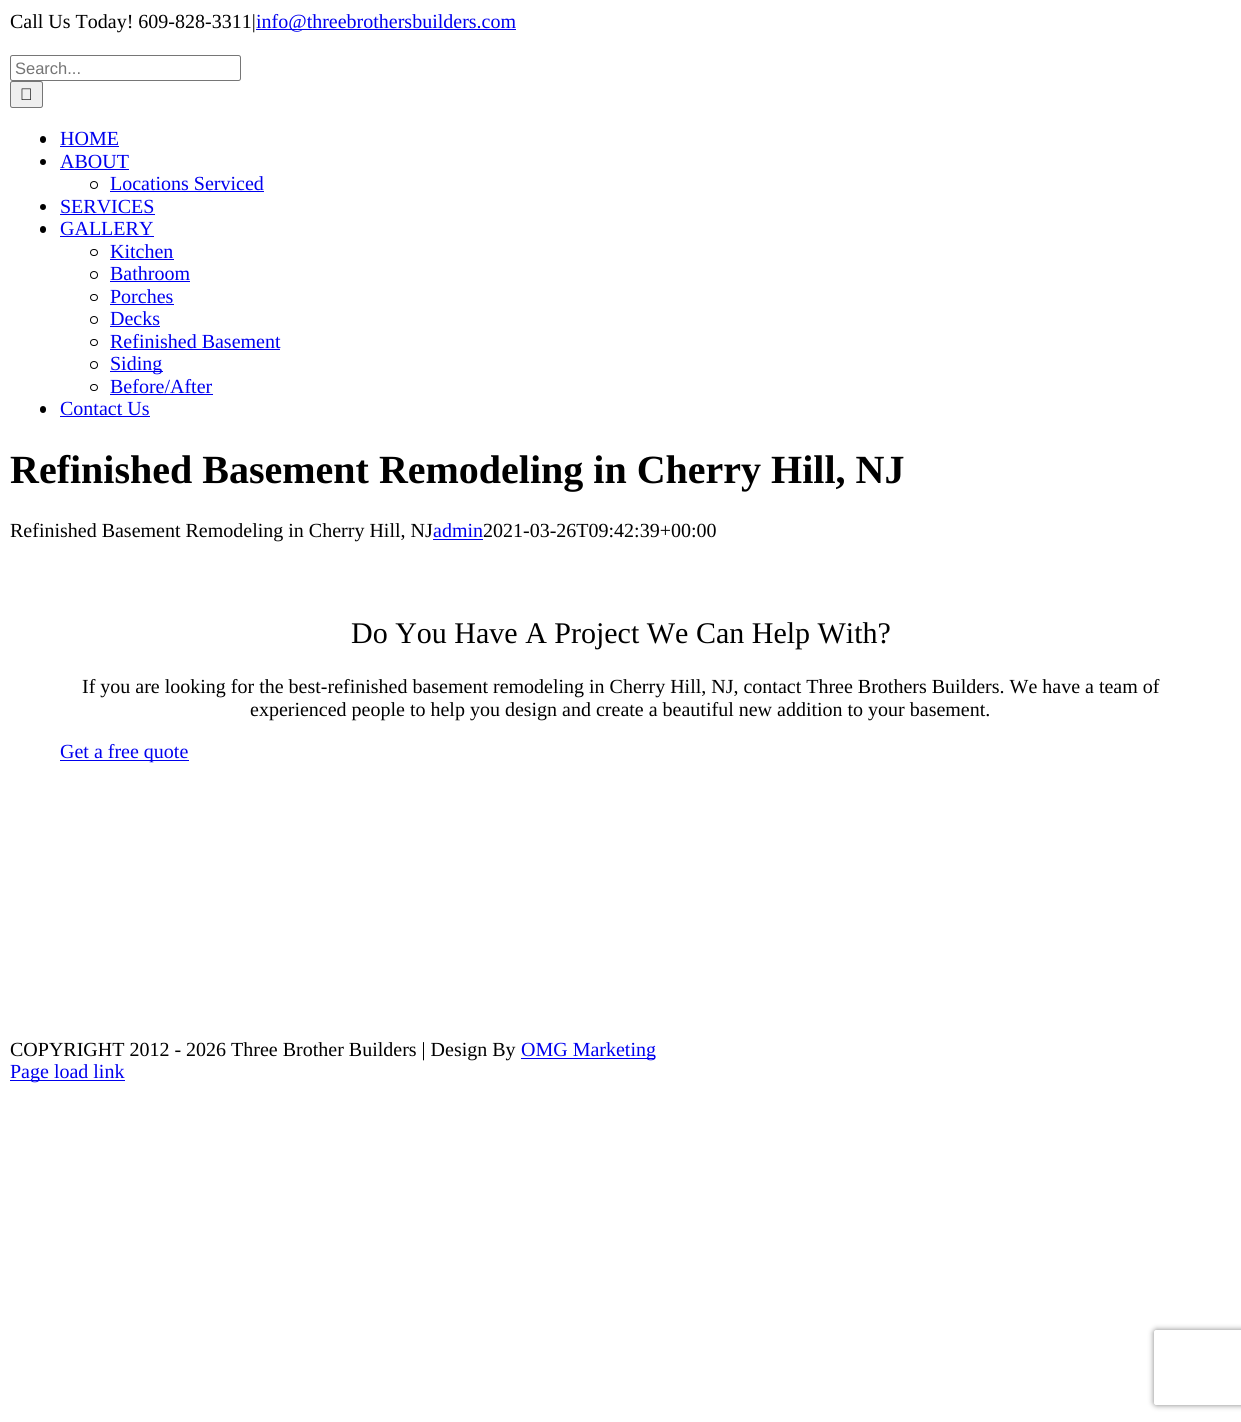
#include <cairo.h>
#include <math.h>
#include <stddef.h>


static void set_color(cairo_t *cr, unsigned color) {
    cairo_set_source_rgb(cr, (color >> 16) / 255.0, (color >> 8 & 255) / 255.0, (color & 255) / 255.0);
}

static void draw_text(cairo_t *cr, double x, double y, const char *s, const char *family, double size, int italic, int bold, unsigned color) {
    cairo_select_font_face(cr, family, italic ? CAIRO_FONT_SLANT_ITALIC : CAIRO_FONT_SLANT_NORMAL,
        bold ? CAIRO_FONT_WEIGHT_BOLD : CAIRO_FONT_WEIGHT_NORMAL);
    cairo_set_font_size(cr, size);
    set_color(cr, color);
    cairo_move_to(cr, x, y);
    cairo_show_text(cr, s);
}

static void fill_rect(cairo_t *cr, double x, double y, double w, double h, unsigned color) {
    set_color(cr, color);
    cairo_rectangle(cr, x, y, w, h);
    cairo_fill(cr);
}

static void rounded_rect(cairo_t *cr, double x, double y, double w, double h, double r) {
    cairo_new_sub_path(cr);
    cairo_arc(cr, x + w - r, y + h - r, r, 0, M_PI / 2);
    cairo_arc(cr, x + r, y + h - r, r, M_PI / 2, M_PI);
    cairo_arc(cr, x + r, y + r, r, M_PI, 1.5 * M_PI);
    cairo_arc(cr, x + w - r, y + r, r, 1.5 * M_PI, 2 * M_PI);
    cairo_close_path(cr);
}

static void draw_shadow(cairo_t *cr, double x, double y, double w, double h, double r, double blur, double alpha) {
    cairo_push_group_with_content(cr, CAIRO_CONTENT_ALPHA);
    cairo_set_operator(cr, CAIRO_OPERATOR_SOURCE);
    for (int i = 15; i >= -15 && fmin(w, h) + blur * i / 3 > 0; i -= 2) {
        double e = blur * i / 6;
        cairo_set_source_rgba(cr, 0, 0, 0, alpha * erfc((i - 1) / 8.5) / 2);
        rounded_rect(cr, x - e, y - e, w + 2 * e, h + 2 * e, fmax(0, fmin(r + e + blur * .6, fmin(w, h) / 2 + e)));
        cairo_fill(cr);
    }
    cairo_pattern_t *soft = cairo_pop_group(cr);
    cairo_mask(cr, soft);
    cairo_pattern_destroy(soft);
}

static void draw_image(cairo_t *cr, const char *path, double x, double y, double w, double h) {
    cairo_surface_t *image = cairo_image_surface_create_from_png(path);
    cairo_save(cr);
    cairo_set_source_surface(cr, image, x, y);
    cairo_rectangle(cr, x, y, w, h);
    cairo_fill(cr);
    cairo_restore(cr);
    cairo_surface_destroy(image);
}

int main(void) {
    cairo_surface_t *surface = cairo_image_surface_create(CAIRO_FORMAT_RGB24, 1241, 1422);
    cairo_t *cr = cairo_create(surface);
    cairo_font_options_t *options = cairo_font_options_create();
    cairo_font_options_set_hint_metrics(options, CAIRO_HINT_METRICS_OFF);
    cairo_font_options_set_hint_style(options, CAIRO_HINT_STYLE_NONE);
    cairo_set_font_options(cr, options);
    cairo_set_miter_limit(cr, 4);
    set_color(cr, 0xFFFFFF);
    cairo_paint(cr);
    draw_text(cr, 10, 28, "Call Us Today! 609-828-3311|", "Liberation Serif", 20, 0, 0, 0x000000);
    fill_rect(cr, 256, 29, 260, 1, 0x0000EE);
    draw_text(cr, 256, 28, "info@threebrothersbuilders.com", "Liberation Serif", 20, 0, 0, 0x0000EE);
    rounded_rect(cr, 10.5, 55.5, 230, 25, 2);
    set_color(cr, 0x767676);
    cairo_set_line_width(cr, 1);
    cairo_stroke(cr);
    draw_text(cr, 15, 74, "Search...", "Liberation Sans", 16.5, 0, 0, 0x757575);
    set_color(cr, 0xEFEFEF);
    rounded_rect(cr, 10.5, 81.5, 32, 26, 2);
    cairo_fill_preserve(cr);
    set_color(cr, 0x767676);
    cairo_stroke(cr);
    draw_image(cr, "assets/img1.png", 21, 88, 10, 12);
    set_color(cr, 0x000000);
    rounded_rect(cr, 40, 136, 6, 7, 3);
    cairo_fill(cr);
    draw_text(cr, 60, 145, "HOME", "Liberation Serif", 20, 0, 0, 0x0000EE);
    fill_rect(cr, 60, 146, 59, 1, 0x0000EE);
    set_color(cr, 0x000000);
    cairo_new_path(cr);
    cairo_arc(cr, 43, 162, 3, 0, 2 * M_PI);
    cairo_fill(cr);
    draw_text(cr, 60, 168, "ABOUT", "Liberation Serif", 20, 0, 0, 0x0000EE);
    fill_rect(cr, 60, 169, 69, 1, 0x0000EE);
    cairo_new_path(cr);
    cairo_arc(cr, 94, 185, 3.5, 0, 2 * M_PI);
    set_color(cr, 0x000000);
    cairo_stroke(cr);
    draw_text(cr, 110, 190, "Locations Serviced", "Liberation Serif", 20, 0, 0, 0x0000EE);
    fill_rect(cr, 110, 191, 154, 1, 0x0000EE);
    set_color(cr, 0x000000);
    cairo_new_path(cr);
    cairo_arc(cr, 43, 207, 3, 0, 2 * M_PI);
    cairo_fill(cr);
    draw_text(cr, 60, 213, "SERVICES", "Liberation Serif", 20, 0, 0, 0x0000EE);
    fill_rect(cr, 60, 214, 95, 1, 0x0000EE);
    set_color(cr, 0x000000);
    rounded_rect(cr, 40, 226, 6, 7, 3);
    cairo_fill(cr);
    draw_text(cr, 60, 235, "GALLERY", "Liberation Serif", 20, 0, 0, 0x0000EE);
    fill_rect(cr, 60, 236, 94, 1, 0x0000EE);
    rounded_rect(cr, 90.5, 249.5, 7, 6, 3);
    set_color(cr, 0x000000);
    cairo_stroke(cr);
    draw_text(cr, 110, 258, "Kitchen", "Liberation Serif", 20, 0, 0, 0x0000EE);
    fill_rect(cr, 110, 259, 64, 1, 0x0000EE);
    cairo_new_path(cr);
    cairo_arc(cr, 94, 275, 3.5, 0, 2 * M_PI);
    set_color(cr, 0x000000);
    cairo_stroke(cr);
    draw_text(cr, 110, 280, "Bathroom", "Liberation Serif", 20, 0, 0, 0x0000EE);
    fill_rect(cr, 110, 281, 80, 1, 0x0000EE);
    rounded_rect(cr, 90.5, 294.5, 7, 6, 3);
    set_color(cr, 0x000000);
    cairo_stroke(cr);
    draw_text(cr, 110, 303, "Porches", "Liberation Serif", 20, 0, 0, 0x0000EE);
    fill_rect(cr, 110, 304, 64, 1, 0x0000EE);
    cairo_new_path(cr);
    cairo_arc(cr, 94, 320, 3.5, 0, 2 * M_PI);
    set_color(cr, 0x000000);
    cairo_stroke(cr);
    draw_text(cr, 110, 325, "Decks", "Liberation Serif", 20, 0, 0, 0x0000EE);
    fill_rect(cr, 110, 326, 50, 1, 0x0000EE);
    rounded_rect(cr, 90.5, 339.5, 7, 6, 3);
    set_color(cr, 0x000000);
    cairo_stroke(cr);
    draw_text(cr, 110, 348, "Refinished Basement", "Liberation Serif", 20, 0, 0, 0x0000EE);
    fill_rect(cr, 110, 349, 170, 1, 0x0000EE);
    cairo_new_path(cr);
    cairo_arc(cr, 94, 365, 3.5, 0, 2 * M_PI);
    set_color(cr, 0x000000);
    cairo_stroke(cr);
    fill_rect(cr, 110, 371, 53, 1, 0x0000EE);
    draw_text(cr, 110, 370, "Siding", "Liberation Serif", 20, 0, 0, 0x0000EE);
    rounded_rect(cr, 90.5, 384.5, 7, 6, 3);
    set_color(cr, 0x000000);
    cairo_stroke(cr);
    draw_text(cr, 110, 393, "Before/After", "Liberation Serif", 20, 0, 0, 0x0000EE);
    fill_rect(cr, 110, 394, 103, 1, 0x0000EE);
    set_color(cr, 0x000000);
    rounded_rect(cr, 40, 406, 6, 7, 3);
    cairo_fill(cr);
    draw_text(cr, 60, 415, "Contact Us", "Liberation Serif", 20, 0, 0, 0x0000EE);
    fill_rect(cr, 60, 416, 90, 1, 0x0000EE);
    draw_text(cr, 10, 483, "Refinished Basement Remodeling in Cherry Hill, NJ", "Liberation Serif", 40, 0, 1, 0x000000);
    draw_text(cr, 10, 537, "Refinished Basement Remodeling in Cherry Hill, NJ", "Liberation Serif", 20, 0, 0, 0x000000);
    draw_text(cr, 433, 537, "admin", "Liberation Serif", 20, 0, 0, 0x0000EE);
    fill_rect(cr, 433, 539, 50, 1, 0x0000EE);
    draw_text(cr, 483, 537, "2021-03-26T09:42:39+00:00", "Liberation Serif", 20, 0, 0, 0x000000);
    draw_text(cr, 351, 643, "Do You Have A Project We Can Help With?", "Liberation Serif", 30, 0, 0, 0x000000);
    draw_text(cr, 82, 693, "If you are looking for the best-refinished basement remodeling in Cherry Hill, NJ, contact Three Brothers Builders. We have a team of", "Liberation Serif", 20, 0, 0, 0x000000);
    draw_text(cr, 250, 716, "experienced people to help you design and create a beautiful new addition to your basement.", "Liberation Serif", 20, 0, 0, 0x000000);
    fill_rect(cr, 60, 760, 129, 1, 0x0000EE);
    draw_text(cr, 60, 758, "Get a free quote", "Liberation Serif", 20, 0, 0, 0x0000EE);
    draw_text(cr, 10, 1056, "COPYRIGHT 2012 - 2026 Three Brother Builders | Design By", "Liberation Serif", 20, 0, 0, 0x000000);
    fill_rect(cr, 521, 1058, 134, 1, 0x0000EE);
    draw_text(cr, 521, 1056, "OMG Marketing", "Liberation Serif", 20, 0, 0, 0x0000EE);
    fill_rect(cr, 10, 1080, 115, 1, 0x0000EE);
    draw_text(cr, 10, 1078, "Page load link", "Liberation Serif", 20, 0, 0, 0x0000EE);
    cairo_save(cr);
    cairo_set_fill_rule(cr, CAIRO_FILL_RULE_EVEN_ODD);
    cairo_new_path(cr);
    cairo_move_to(cr, 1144, 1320);
    cairo_line_to(cr, 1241, 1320);
    cairo_line_to(cr, 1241, 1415);
    cairo_line_to(cr, 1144, 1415);
    cairo_close_path(cr);
    cairo_move_to(cr, 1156.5, 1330);
    cairo_line_to(cr, 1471.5, 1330);
    cairo_curve_to(cr, 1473, 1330, 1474, 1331, 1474, 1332.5);
    cairo_line_to(cr, 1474, 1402.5);
    cairo_curve_to(cr, 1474, 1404, 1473, 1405, 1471.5, 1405);
    cairo_line_to(cr, 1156.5, 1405);
    cairo_curve_to(cr, 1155, 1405, 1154, 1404, 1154, 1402.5);
    cairo_line_to(cr, 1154, 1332.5);
    cairo_curve_to(cr, 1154, 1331, 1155, 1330, 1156.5, 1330);
    cairo_close_path(cr);
    cairo_clip(cr);
    set_color(cr, 0x808080);
    draw_shadow(cr, 1154, 1330, 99, 75, 2.5, 3, 1);
    cairo_restore(cr);
    cairo_surface_write_to_png(surface, "output.png");
    cairo_font_options_destroy(options);
    cairo_destroy(cr);
    cairo_surface_destroy(surface);
    return 0;
}
